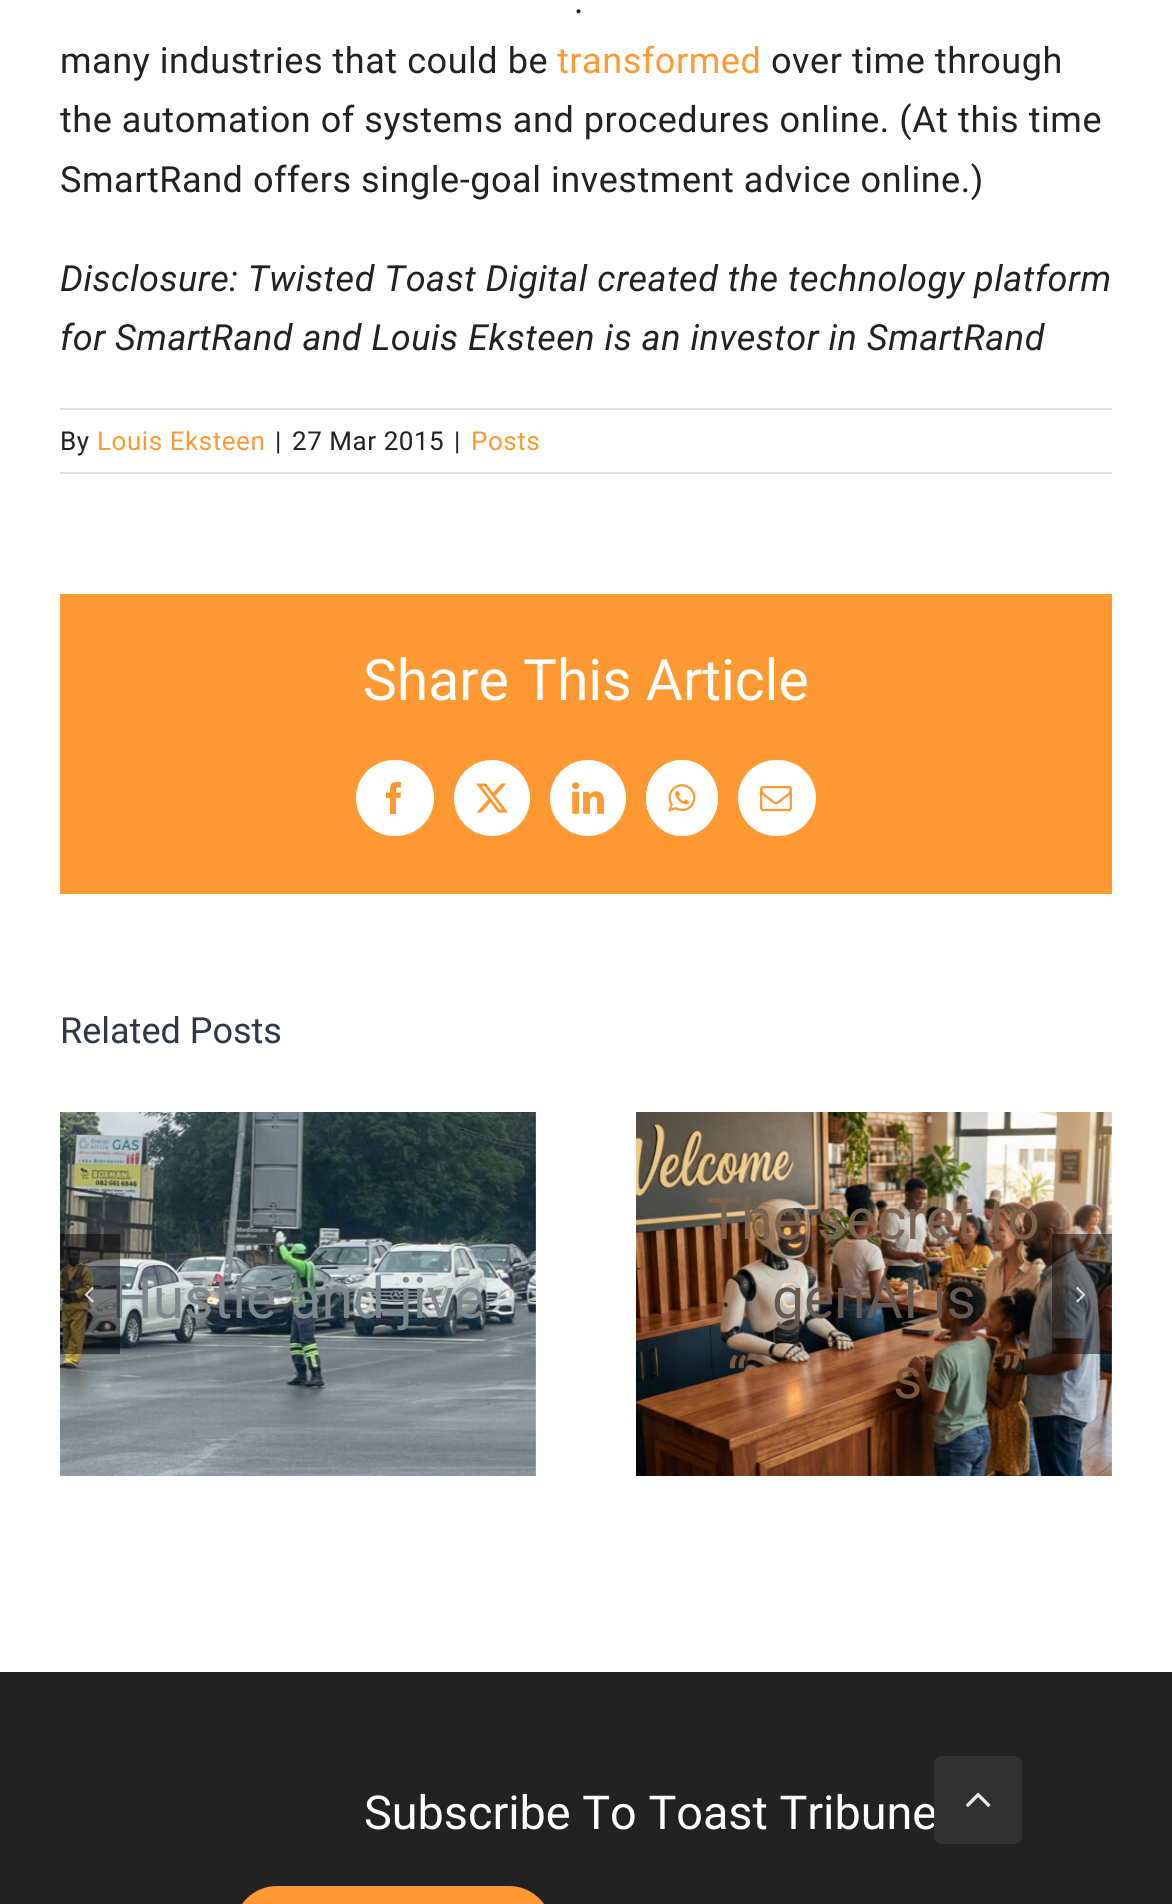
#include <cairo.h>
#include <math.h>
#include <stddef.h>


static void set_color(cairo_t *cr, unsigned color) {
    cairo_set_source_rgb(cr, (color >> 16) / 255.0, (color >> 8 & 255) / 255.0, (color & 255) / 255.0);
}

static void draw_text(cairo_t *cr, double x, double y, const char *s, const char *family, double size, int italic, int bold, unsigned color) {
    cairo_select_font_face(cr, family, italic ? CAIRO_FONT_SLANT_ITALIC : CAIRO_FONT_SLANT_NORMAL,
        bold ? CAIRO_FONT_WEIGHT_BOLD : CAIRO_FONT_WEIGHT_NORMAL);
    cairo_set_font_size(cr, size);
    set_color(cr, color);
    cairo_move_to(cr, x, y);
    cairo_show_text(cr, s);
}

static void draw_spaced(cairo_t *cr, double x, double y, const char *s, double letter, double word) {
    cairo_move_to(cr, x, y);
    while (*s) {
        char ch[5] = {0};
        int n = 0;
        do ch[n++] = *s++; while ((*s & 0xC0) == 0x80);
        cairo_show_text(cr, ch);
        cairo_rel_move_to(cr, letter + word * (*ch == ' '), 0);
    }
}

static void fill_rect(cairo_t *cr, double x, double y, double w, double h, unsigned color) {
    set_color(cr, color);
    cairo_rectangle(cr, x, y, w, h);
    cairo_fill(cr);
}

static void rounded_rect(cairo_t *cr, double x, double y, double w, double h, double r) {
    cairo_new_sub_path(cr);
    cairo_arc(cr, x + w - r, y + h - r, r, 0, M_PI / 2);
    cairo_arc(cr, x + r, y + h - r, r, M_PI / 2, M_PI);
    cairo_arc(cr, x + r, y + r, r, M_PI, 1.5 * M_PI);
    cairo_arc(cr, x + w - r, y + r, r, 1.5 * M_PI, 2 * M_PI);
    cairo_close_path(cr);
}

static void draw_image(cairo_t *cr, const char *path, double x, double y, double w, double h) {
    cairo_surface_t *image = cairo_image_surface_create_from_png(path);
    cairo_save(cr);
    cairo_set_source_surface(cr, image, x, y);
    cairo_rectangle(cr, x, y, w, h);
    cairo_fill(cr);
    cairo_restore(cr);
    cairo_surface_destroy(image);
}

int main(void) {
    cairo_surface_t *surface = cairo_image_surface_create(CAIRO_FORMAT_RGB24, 1172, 1904);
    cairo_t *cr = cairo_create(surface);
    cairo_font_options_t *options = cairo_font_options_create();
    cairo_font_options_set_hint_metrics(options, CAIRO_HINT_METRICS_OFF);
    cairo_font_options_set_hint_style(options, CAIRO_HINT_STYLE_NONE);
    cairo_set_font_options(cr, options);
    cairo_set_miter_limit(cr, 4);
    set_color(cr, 0xFFFFFF);
    cairo_paint(cr);
    cairo_select_font_face(cr, "Roboto", CAIRO_FONT_SLANT_NORMAL, CAIRO_FONT_WEIGHT_NORMAL);
    cairo_set_font_size(cr, 36);
    set_color(cr, 0x222222);
    draw_spaced(cr, 574, 13, ".", 0.55, 0);
    draw_spaced(cr, 60, 73, "many industries that could be", 0.55, 0);
    set_color(cr, 0xFF9933);
    draw_spaced(cr, 557, 73, "transformed", 0.55, 0);
    set_color(cr, 0x222222);
    draw_spaced(cr, 771, 73, "over time through", 0.55, 0);
    draw_spaced(cr, 60, 132, "the automation of systems and procedures online. (At this time", 0.55, 0);
    draw_spaced(cr, 60, 192, "SmartRand offers single-goal investment advice online.)", 0.55, 0);
    cairo_select_font_face(cr, "Roboto", CAIRO_FONT_SLANT_ITALIC, CAIRO_FONT_WEIGHT_NORMAL);
    draw_spaced(cr, 60, 291, "Disclosure: Twisted Toast Digital created the technology platform", 0.55, 0);
    draw_spaced(cr, 60, 350, "for SmartRand and Louis Eksteen is an investor in SmartRand", 0.55, 0);
    fill_rect(cr, 60, 408, 1052, 2, 0xE0DEDE);
    fill_rect(cr, 60, 472, 1052, 2, 0xE0DEDE);
    cairo_select_font_face(cr, "Roboto", CAIRO_FONT_SLANT_NORMAL, CAIRO_FONT_WEIGHT_NORMAL);
    cairo_set_font_size(cr, 26);
    set_color(cr, 0x222222);
    draw_spaced(cr, 60, 450, "By", 0.55, 0);
    set_color(cr, 0xFF9933);
    draw_spaced(cr, 97, 450, "Louis Eksteen", 0.55, 0);
    set_color(cr, 0x222222);
    draw_spaced(cr, 275, 450, "|", 0.55, 0);
    draw_spaced(cr, 292, 450, "27 Mar 2015", 0.55, 0);
    draw_spaced(cr, 454, 450, "|", 0.55, 0);
    set_color(cr, 0xFF9933);
    draw_spaced(cr, 471, 450, "Posts", 0.55, 0);
    fill_rect(cr, 60, 594, 1052, 300, 0xFF9933);
    draw_text(cr, 363, 700, "Share This Article", "Roboto", 57, 0, 0, 0xFFFFFF);
    rounded_rect(cr, 357, 761, 76, 74, 37);
    cairo_fill_preserve(cr);
    cairo_stroke(cr);
    draw_image(cr, "assets/img1.png", 386, 782, 15, 32);
    cairo_arc(cr, 492, 798, 37, 0, 2 * M_PI);
    cairo_fill_preserve(cr);
    cairo_stroke(cr);
    draw_image(cr, "assets/img2.png", 476, 783, 32, 30);
    cairo_arc(cr, 588, 798, 37, 0, 2 * M_PI);
    cairo_fill_preserve(cr);
    cairo_stroke(cr);
    draw_image(cr, "assets/img3.png", 572, 782, 32, 32);
    cairo_new_path(cr);
    cairo_move_to(cr, 682, 760);
    cairo_curve_to(cr, 702, 760, 718, 777, 718, 798);
    cairo_curve_to(cr, 718, 819, 702, 836, 682, 836);
    cairo_curve_to(cr, 662, 836, 646, 819, 646, 798);
    cairo_curve_to(cr, 646, 777, 662, 760, 682, 760);
    cairo_close_path(cr);
    cairo_fill(cr);
    cairo_new_path(cr);
    cairo_move_to(cr, 682, 761);
    cairo_curve_to(cr, 701.5, 761, 717, 777.5, 717, 798);
    cairo_curve_to(cr, 717, 818.5, 701.5, 835, 682, 835);
    cairo_curve_to(cr, 662.5, 835, 647, 818.5, 647, 798);
    cairo_curve_to(cr, 647, 777.5, 662.5, 761, 682, 761);
    cairo_close_path(cr);
    cairo_stroke(cr);
    draw_image(cr, "assets/img4.png", 668, 784, 28, 28);
    rounded_rect(cr, 739, 761, 76, 74, 37);
    cairo_fill_preserve(cr);
    cairo_stroke(cr);
    draw_image(cr, "assets/img5.png", 760, 786, 32, 26);
    draw_text(cr, 60, 1043, "Related Posts", "Roboto", 36, 0, 0, 0x303745);
    draw_image(cr, "assets/img7.png", 60, 1112, 476, 364);
    draw_text(cr, 112, 1318, "Hustle and jive", "Roboto", 57, 0, 0, 0x7C888A);
    cairo_set_source_rgba(cr, 0, 0, 0, 0.48);
    cairo_rectangle(cr, 60, 1234, 60, 120);
    cairo_fill(cr);
    draw_image(cr, "assets/img6.png", 84, 1287, 10, 16);
    draw_image(cr, "assets/img8.png", 636, 1112, 476, 364);
    draw_text(cr, 707, 1239, "The secret to", "Roboto", 57, 0, 0, 0x7B634E);
    draw_text(cr, 772, 1318, "genAI is", "Roboto", 57, 0, 0, 0x685A50);
    draw_text(cr, 727, 1398, "“", "Roboto", 57, 0, 0, 0x7C573C);
    draw_text(cr, 1001, 1398, "”", "Roboto", 57, 0, 0, 0x7C573C);
    draw_text(cr, 893, 1398, "s", "Roboto", 57, 0, 0, 0x7C573C);
    cairo_set_source_rgba(cr, 0, 0, 0, 0.48);
    cairo_rectangle(cr, 1052, 1234, 60, 120);
    cairo_fill(cr);
    draw_image(cr, "assets/img9.png", 1076, 1287, 10, 16);
    fill_rect(cr, 0, 1672, 1172, 232, 0x222222);
    draw_text(cr, 364, 1829, "Subscribe To Toast Tribune", "Roboto", 46.75, 0, 0, 0xFFFFFF);
    set_color(cr, 0xFF9933);
    rounded_rect(cr, 234, 1886, 318, 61, 43);
    cairo_fill(cr);
    cairo_set_source_rgba(cr, 0.2, 0.2, 0.2, 0.9);
    rounded_rect(cr, 934, 1756, 88, 88, 8);
    cairo_fill(cr);
    draw_image(cr, "assets/img10.png", 966, 1792, 25, 15);
    cairo_surface_write_to_png(surface, "output.png");
    cairo_font_options_destroy(options);
    cairo_destroy(cr);
    cairo_surface_destroy(surface);
    return 0;
}
